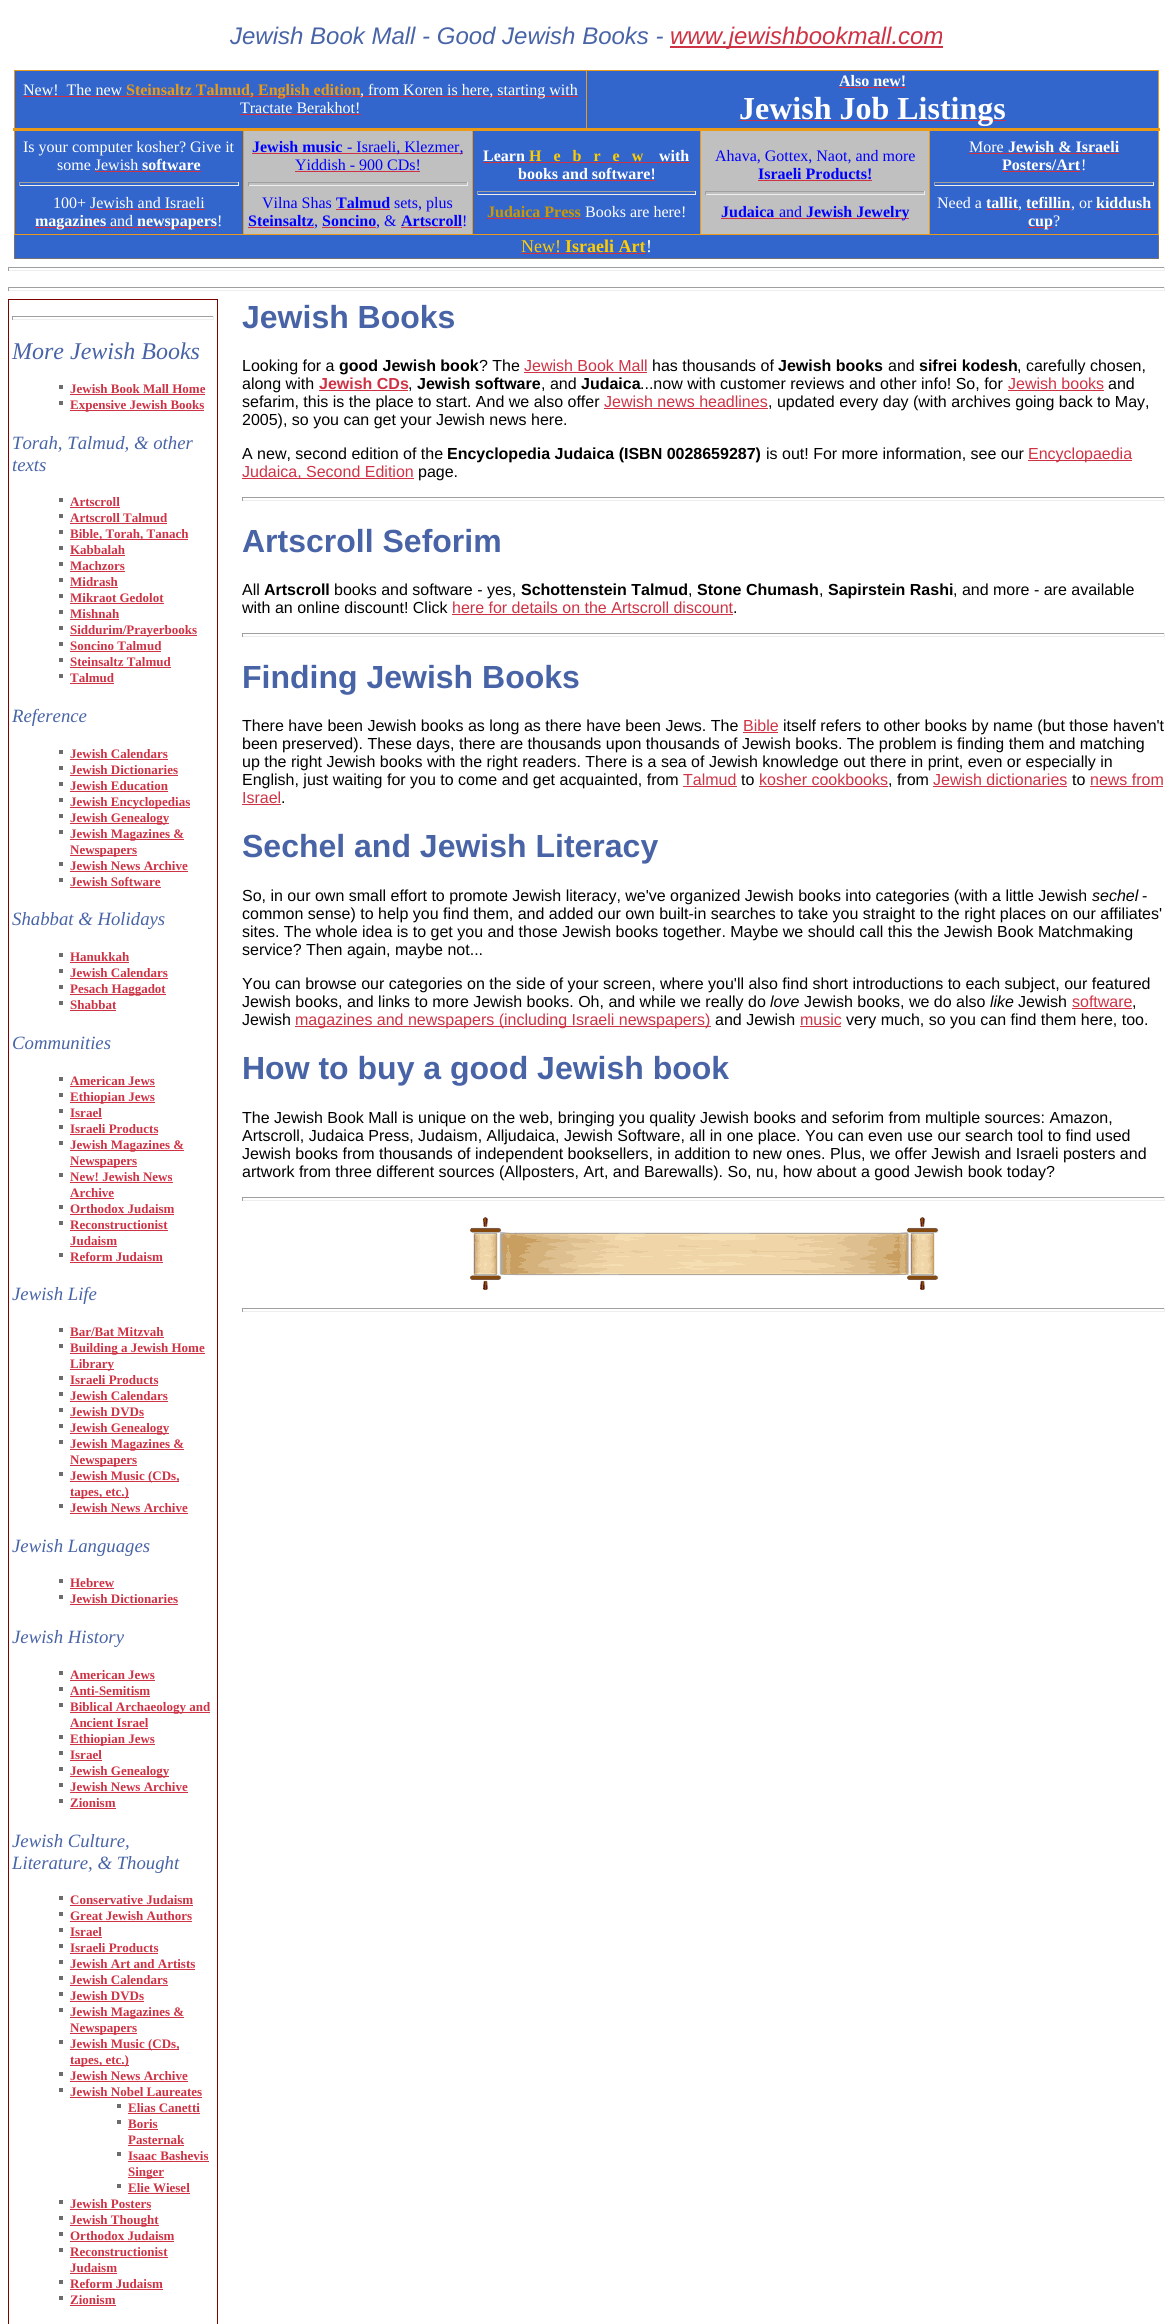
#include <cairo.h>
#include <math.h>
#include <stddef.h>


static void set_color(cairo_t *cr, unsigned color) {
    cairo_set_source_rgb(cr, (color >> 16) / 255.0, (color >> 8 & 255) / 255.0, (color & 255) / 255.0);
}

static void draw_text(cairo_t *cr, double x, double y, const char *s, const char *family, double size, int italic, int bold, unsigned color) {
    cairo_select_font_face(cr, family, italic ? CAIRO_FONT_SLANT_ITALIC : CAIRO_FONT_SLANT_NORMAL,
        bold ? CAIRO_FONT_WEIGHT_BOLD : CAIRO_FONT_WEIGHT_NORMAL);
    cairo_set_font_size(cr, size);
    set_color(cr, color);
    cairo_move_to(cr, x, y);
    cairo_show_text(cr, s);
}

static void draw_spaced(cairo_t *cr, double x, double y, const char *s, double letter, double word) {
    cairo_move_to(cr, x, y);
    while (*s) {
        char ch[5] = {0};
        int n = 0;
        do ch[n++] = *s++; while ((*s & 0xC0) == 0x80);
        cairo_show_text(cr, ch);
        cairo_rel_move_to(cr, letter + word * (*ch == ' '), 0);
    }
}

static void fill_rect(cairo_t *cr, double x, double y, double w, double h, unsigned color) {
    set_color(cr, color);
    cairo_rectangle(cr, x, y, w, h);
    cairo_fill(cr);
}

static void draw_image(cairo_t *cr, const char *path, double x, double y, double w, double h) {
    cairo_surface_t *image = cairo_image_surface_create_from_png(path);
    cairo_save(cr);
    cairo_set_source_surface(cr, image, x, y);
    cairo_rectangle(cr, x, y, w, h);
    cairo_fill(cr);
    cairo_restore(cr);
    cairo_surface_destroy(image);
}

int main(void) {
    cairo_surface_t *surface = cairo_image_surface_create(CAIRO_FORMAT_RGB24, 1173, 2324);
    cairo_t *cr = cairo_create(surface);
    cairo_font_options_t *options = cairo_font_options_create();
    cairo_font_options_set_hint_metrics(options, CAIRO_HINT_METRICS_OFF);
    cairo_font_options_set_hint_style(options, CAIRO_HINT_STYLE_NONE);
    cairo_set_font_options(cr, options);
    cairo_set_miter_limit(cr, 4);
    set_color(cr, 0xFFFFFF);
    cairo_paint(cr);
    draw_text(cr, 230, 44, "Jewish Book Mall - Good Jewish Books -", "Liberation Sans", 24, 1, 0, 0x4864A7);
    fill_rect(cr, 670, 46, 273, 2, 0xCE3345);
    draw_text(cr, 670, 44, "www.jewishbookmall.com", "Liberation Sans", 24, 1, 0, 0xCE3345);
    fill_rect(cr, 15, 71, 571, 57, 0x3366CC);
    fill_rect(cr, 586, 70, 573, 1, 0xE99B18);
    fill_rect(cr, 586, 70, 1, 60, 0xE99B18);
    fill_rect(cr, 14, 70, 573, 1, 0xE99B18);
    fill_rect(cr, 1158, 234, 1, 25, 0x727272);
    fill_rect(cr, 1158, 129, 1, 106, 0xE99B18);
    fill_rect(cr, 929, 234, 230, 1, 0xE99B18);
    fill_rect(cr, 929, 129, 1, 106, 0xE99B18);
    fill_rect(cr, 700, 234, 230, 1, 0xE99B18);
    fill_rect(cr, 700, 129, 1, 106, 0xE99B18);
    fill_rect(cr, 472, 234, 229, 1, 0xE99B18);
    fill_rect(cr, 472, 129, 1, 106, 0xE99B18);
    fill_rect(cr, 243, 234, 230, 1, 0xE99B18);
    fill_rect(cr, 243, 129, 1, 106, 0xE99B18);
    fill_rect(cr, 14, 258, 1145, 1, 0x727272);
    fill_rect(cr, 14, 234, 1, 25, 0x727272);
    fill_rect(cr, 14, 234, 230, 1, 0xE99B18);
    fill_rect(cr, 14, 129, 1, 106, 0xE99B18);
    fill_rect(cr, 14, 70, 1, 60, 0xE99B18);
    draw_text(cr, 23, 95, "New!  The new", "Liberation Serif", 16, 0, 0, 0xFFFFFF);
    fill_rect(cr, 23, 96, 337, 1, 0xCE3345);
    draw_text(cr, 126, 95, "Steinsaltz Talmud, English edition", "Liberation Serif", 16, 0, 1, 0xE99B18);
    fill_rect(cr, 360, 96, 218, 1, 0xCE3345);
    draw_text(cr, 360, 95, ", from Koren is here, starting with", "Liberation Serif", 16, 0, 0, 0xFFFFFF);
    draw_text(cr, 240, 113, "Tractate Berakhot!", "Liberation Serif", 16, 0, 0, 0xFFFFFF);
    fill_rect(cr, 240, 114, 121, 1, 0xCE3345);
    fill_rect(cr, 587, 71, 571, 57, 0x3366CC);
    fill_rect(cr, 1158, 70, 1, 60, 0xE99B18);
    fill_rect(cr, 13, 128, 1147, 3, 0xE99B18);
    draw_text(cr, 839, 86, "Also new!", "Liberation Serif", 16, 0, 1, 0xFFFFFF);
    fill_rect(cr, 839, 87, 67, 1, 0xCE3345);
    fill_rect(cr, 739, 120, 267, 1, 0xCE3345);
    draw_text(cr, 739, 119, "Jewish Job Listings", "Liberation Serif", 32, 0, 1, 0xFFFFFF);
    fill_rect(cr, 15, 131, 228, 103, 0x3366CC);
    draw_text(cr, 23, 152, "Is your computer kosher? Give it", "Liberation Serif", 16, 0, 0, 0xFFFFFF);
    draw_text(cr, 57, 170, "some Jewish", "Liberation Serif", 16, 0, 0, 0xFFFFFF);
    fill_rect(cr, 95, 171, 106, 1, 0xCE3345);
    draw_text(cr, 142, 170, "software", "Liberation Serif", 16, 0, 1, 0xFFFFFF);
    fill_rect(cr, 19, 182, 220, 1, 0x9F9F9F);
    fill_rect(cr, 238, 182, 1, 4, 0xEEEEEE);
    fill_rect(cr, 19, 185, 220, 1, 0xEEEEEE);
    fill_rect(cr, 19, 182, 1, 4, 0x9F9F9F);
    draw_text(cr, 53, 208, "100+ Jewish and Israeli", "Liberation Serif", 16, 0, 0, 0xFFFFFF);
    fill_rect(cr, 90, 209, 115, 1, 0xCE3345);
    fill_rect(cr, 35, 227, 182, 1, 0xCE3345);
    draw_text(cr, 35, 226, "magazines", "Liberation Serif", 16, 0, 1, 0xFFFFFF);
    draw_text(cr, 110, 226, "and", "Liberation Serif", 16, 0, 0, 0xFFFFFF);
    draw_text(cr, 137, 226, "newspapers", "Liberation Serif", 16, 0, 1, 0xFFFFFF);
    draw_text(cr, 217, 226, "!", "Liberation Serif", 16, 0, 0, 0xFFFFFF);
    fill_rect(cr, 244, 131, 228, 103, 0xC0C0C0);
    draw_text(cr, 252, 152, "Jewish music", "Liberation Serif", 16, 0, 1, 0x0000FF);
    fill_rect(cr, 252, 153, 211, 1, 0xCE3345);
    draw_text(cr, 347, 152, "- Israeli, Klezmer,", "Liberation Serif", 16, 0, 0, 0x0000FF);
    draw_text(cr, 295, 170, "Yiddish - 900 CDs!", "Liberation Serif", 16, 0, 0, 0x0000FF);
    fill_rect(cr, 295, 171, 125, 1, 0xCE3345);
    fill_rect(cr, 248, 182, 220, 1, 0x9F9F9F);
    fill_rect(cr, 467, 182, 1, 4, 0xEEEEEE);
    fill_rect(cr, 248, 185, 220, 1, 0xEEEEEE);
    fill_rect(cr, 248, 182, 1, 4, 0x9F9F9F);
    draw_text(cr, 262, 208, "Vilna Shas", "Liberation Serif", 16, 0, 0, 0x0000FF);
    draw_text(cr, 336, 208, "Talmud", "Liberation Serif", 16, 0, 1, 0x0000FF);
    fill_rect(cr, 336, 209, 54, 1, 0xCE3345);
    draw_text(cr, 394, 208, "sets, plus", "Liberation Serif", 16, 0, 0, 0x0000FF);
    draw_text(cr, 248, 226, "Steinsaltz", "Liberation Serif", 16, 0, 1, 0x0000FF);
    draw_text(cr, 314, 226, ",", "Liberation Serif", 16, 0, 0, 0x0000FF);
    fill_rect(cr, 248, 227, 66, 1, 0xCE3345);
    fill_rect(cr, 322, 227, 54, 1, 0xCE3345);
    draw_text(cr, 322, 226, "Soncino", "Liberation Serif", 16, 0, 1, 0x0000FF);
    draw_text(cr, 376, 226, ", &", "Liberation Serif", 16, 0, 0, 0x0000FF);
    draw_text(cr, 401, 226, "Artscroll", "Liberation Serif", 16, 0, 1, 0x0000FF);
    fill_rect(cr, 401, 227, 61, 1, 0xCE3345);
    draw_text(cr, 462, 226, "!", "Liberation Serif", 16, 0, 0, 0x0000FF);
    fill_rect(cr, 473, 131, 227, 103, 0x3366CC);
    draw_text(cr, 483, 161, "Learn", "Liberation Serif", 16, 0, 1, 0xFFFFFF);
    fill_rect(cr, 483, 162, 207, 1, 0xCE3345);
    set_color(cr, 0xFFCC00);
    draw_spaced(cr, 529, 161, "Hebrew", 12, 0);
    draw_text(cr, 659, 161, "with", "Liberation Serif", 16, 0, 1, 0xFFFFFF);
    draw_text(cr, 518, 179, "books and software!", "Liberation Serif", 16, 0, 1, 0xFFFFFF);
    fill_rect(cr, 518, 180, 137, 1, 0xCE3345);
    fill_rect(cr, 477, 191, 219, 1, 0x9F9F9F);
    fill_rect(cr, 695, 191, 1, 4, 0xEEEEEE);
    fill_rect(cr, 477, 194, 219, 1, 0xEEEEEE);
    fill_rect(cr, 477, 191, 1, 4, 0x9F9F9F);
    draw_text(cr, 487, 217, "Judaica Press", "Liberation Serif", 16, 0, 1, 0xCC9900);
    fill_rect(cr, 487, 218, 94, 1, 0xCE3345);
    draw_text(cr, 585, 217, "Books are here!", "Liberation Serif", 16, 0, 0, 0xFFFFFF);
    fill_rect(cr, 701, 131, 228, 103, 0xC0C0C0);
    draw_text(cr, 715, 161, "Ahava, Gottex, Naot, and more", "Liberation Serif", 16, 0, 0, 0x0000FF);
    draw_text(cr, 758, 179, "Israeli Products!", "Liberation Serif", 16, 0, 1, 0x0000FF);
    fill_rect(cr, 758, 180, 114, 1, 0xCE3345);
    fill_rect(cr, 705, 191, 220, 1, 0x9F9F9F);
    fill_rect(cr, 924, 191, 1, 4, 0xEEEEEE);
    fill_rect(cr, 705, 194, 220, 1, 0xEEEEEE);
    fill_rect(cr, 705, 191, 1, 4, 0x9F9F9F);
    draw_text(cr, 721, 217, "Judaica", "Liberation Serif", 16, 0, 1, 0x0000FF);
    draw_text(cr, 779, 217, "and", "Liberation Serif", 16, 0, 0, 0x0000FF);
    fill_rect(cr, 721, 218, 188, 1, 0xCE3345);
    draw_text(cr, 806, 217, "Jewish Jewelry", "Liberation Serif", 16, 0, 1, 0x0000FF);
    fill_rect(cr, 930, 131, 228, 103, 0x3366CC);
    draw_text(cr, 969, 152, "More", "Liberation Serif", 16, 0, 0, 0xFFFFFF);
    fill_rect(cr, 969, 153, 150, 1, 0xCE3345);
    draw_text(cr, 1008, 152, "Jewish & Israeli", "Liberation Serif", 16, 0, 1, 0xFFFFFF);
    draw_text(cr, 1002, 170, "Posters/Art", "Liberation Serif", 16, 0, 1, 0xFFFFFF);
    fill_rect(cr, 1002, 171, 79, 1, 0xCE3345);
    draw_text(cr, 1081, 170, "!", "Liberation Serif", 16, 0, 0, 0xFFFFFF);
    fill_rect(cr, 934, 182, 220, 1, 0x9F9F9F);
    fill_rect(cr, 1153, 182, 1, 4, 0xEEEEEE);
    fill_rect(cr, 934, 185, 220, 1, 0xEEEEEE);
    fill_rect(cr, 934, 182, 1, 4, 0x9F9F9F);
    draw_text(cr, 937, 208, "Need a", "Liberation Serif", 16, 0, 0, 0xFFFFFF);
    draw_text(cr, 986, 208, "tallit", "Liberation Serif", 16, 0, 1, 0xFFFFFF);
    draw_text(cr, 1018, 208, ",", "Liberation Serif", 16, 0, 0, 0xFFFFFF);
    fill_rect(cr, 986, 209, 32, 1, 0xCE3345);
    fill_rect(cr, 1026, 209, 45, 1, 0xCE3345);
    draw_text(cr, 1026, 208, "tefillin", "Liberation Serif", 16, 0, 1, 0xFFFFFF);
    draw_text(cr, 1071, 208, ", or", "Liberation Serif", 16, 0, 0, 0xFFFFFF);
    fill_rect(cr, 1096, 209, 55, 1, 0xCE3345);
    draw_text(cr, 1096, 208, "kiddush", "Liberation Serif", 16, 0, 1, 0xFFFFFF);
    fill_rect(cr, 1028, 227, 25, 1, 0xCE3345);
    draw_text(cr, 1028, 226, "cup", "Liberation Serif", 16, 0, 1, 0xFFFFFF);
    draw_text(cr, 1053, 226, "?", "Liberation Serif", 16, 0, 0, 0xFFFFFF);
    fill_rect(cr, 15, 235, 1143, 23, 0x3366CC);
    draw_text(cr, 521, 252, "New!", "Liberation Serif", 18, 0, 0, 0xFFCC00);
    fill_rect(cr, 521, 253, 125, 1, 0xCE3345);
    draw_text(cr, 565, 252, "Israeli Art", "Liberation Serif", 18, 0, 1, 0xFFCC00);
    draw_text(cr, 646, 252, "!", "Liberation Serif", 18, 0, 0, 0xFFFFFF);
    fill_rect(cr, 8, 267, 1157, 1, 0x9F9F9F);
    fill_rect(cr, 1164, 267, 1, 4, 0xEEEEEE);
    fill_rect(cr, 8, 270, 1157, 1, 0xEEEEEE);
    fill_rect(cr, 8, 267, 1, 4, 0x9F9F9F);
    fill_rect(cr, 8, 287, 1157, 1, 0x9F9F9F);
    fill_rect(cr, 1164, 287, 1, 4, 0xEEEEEE);
    fill_rect(cr, 8, 290, 1157, 1, 0xEEEEEE);
    fill_rect(cr, 8, 287, 1, 4, 0x9F9F9F);
    cairo_rectangle(cr, 8.5, 299.5, 209, 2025);
    set_color(cr, 0x800000);
    cairo_set_line_width(cr, 1);
    cairo_stroke(cr);
    fill_rect(cr, 12, 316, 202, 1, 0x9F9F9F);
    fill_rect(cr, 213, 316, 1, 4, 0xEEEEEE);
    fill_rect(cr, 12, 319, 202, 1, 0xEEEEEE);
    fill_rect(cr, 12, 316, 1, 4, 0x9F9F9F);
    draw_text(cr, 12, 359, "More Jewish Books", "Liberation Serif", 24, 1, 0, 0x4864A7);
    fill_rect(cr, 59, 385, 4, 4, 0x6C6C6C);
    draw_text(cr, 70, 393, "Jewish Book Mall Home", "Liberation Serif", 13, 0, 1, 0xCE3345);
    fill_rect(cr, 70, 394, 135, 1, 0xCE3345);
    fill_rect(cr, 59, 401, 4, 4, 0x6C6C6C);
    fill_rect(cr, 70, 410, 134, 1, 0xCE3345);
    draw_text(cr, 70, 409, "Expensive Jewish Books", "Liberation Serif", 13, 0, 1, 0xCE3345);
    draw_text(cr, 12, 449, "Torah, Talmud, & other", "Liberation Serif", 18.75, 1, 0, 0x4864A7);
    draw_text(cr, 12, 471, "texts", "Liberation Serif", 18.75, 1, 0, 0x4864A7);
    fill_rect(cr, 59, 498, 4, 4, 0x6C6C6C);
    draw_text(cr, 70, 506, "Artscroll", "Liberation Serif", 13, 0, 1, 0xCE3345);
    fill_rect(cr, 70, 507, 50, 1, 0xCE3345);
    fill_rect(cr, 59, 514, 4, 4, 0x6C6C6C);
    draw_text(cr, 70, 522, "Artscroll Talmud", "Liberation Serif", 13, 0, 1, 0xCE3345);
    fill_rect(cr, 70, 523, 97, 1, 0xCE3345);
    fill_rect(cr, 59, 530, 4, 4, 0x6C6C6C);
    fill_rect(cr, 70, 539, 118, 1, 0xCE3345);
    draw_text(cr, 70, 538, "Bible, Torah, Tanach", "Liberation Serif", 13, 0, 1, 0xCE3345);
    fill_rect(cr, 59, 546, 4, 4, 0x6C6C6C);
    draw_text(cr, 70, 554, "Kabbalah", "Liberation Serif", 13, 0, 1, 0xCE3345);
    fill_rect(cr, 70, 555, 55, 1, 0xCE3345);
    fill_rect(cr, 59, 562, 4, 4, 0x6C6C6C);
    draw_text(cr, 70, 570, "Machzors", "Liberation Serif", 13, 0, 1, 0xCE3345);
    fill_rect(cr, 70, 571, 55, 1, 0xCE3345);
    fill_rect(cr, 59, 578, 4, 4, 0x6C6C6C);
    draw_text(cr, 70, 586, "Midrash", "Liberation Serif", 13, 0, 1, 0xCE3345);
    fill_rect(cr, 70, 587, 48, 1, 0xCE3345);
    fill_rect(cr, 59, 594, 4, 4, 0x6C6C6C);
    draw_text(cr, 70, 602, "Mikraot Gedolot", "Liberation Serif", 13, 0, 1, 0xCE3345);
    fill_rect(cr, 70, 603, 94, 1, 0xCE3345);
    fill_rect(cr, 59, 610, 4, 4, 0x6C6C6C);
    draw_text(cr, 70, 618, "Mishnah", "Liberation Serif", 13, 0, 1, 0xCE3345);
    fill_rect(cr, 70, 619, 49, 1, 0xCE3345);
    fill_rect(cr, 59, 626, 4, 4, 0x6C6C6C);
    fill_rect(cr, 70, 635, 127, 1, 0xCE3345);
    draw_text(cr, 70, 634, "Siddurim/Prayerbooks", "Liberation Serif", 13, 0, 1, 0xCE3345);
    fill_rect(cr, 59, 642, 4, 4, 0x6C6C6C);
    draw_text(cr, 70, 650, "Soncino Talmud", "Liberation Serif", 13, 0, 1, 0xCE3345);
    fill_rect(cr, 70, 651, 91, 1, 0xCE3345);
    fill_rect(cr, 59, 658, 4, 4, 0x6C6C6C);
    draw_text(cr, 70, 666, "Steinsaltz Talmud", "Liberation Serif", 13, 0, 1, 0xCE3345);
    fill_rect(cr, 70, 667, 101, 1, 0xCE3345);
    fill_rect(cr, 59, 674, 4, 4, 0x6C6C6C);
    draw_text(cr, 70, 682, "Talmud", "Liberation Serif", 13, 0, 1, 0xCE3345);
    fill_rect(cr, 70, 683, 44, 1, 0xCE3345);
    draw_text(cr, 12, 722, "Reference", "Liberation Serif", 18.75, 1, 0, 0x4864A7);
    fill_rect(cr, 59, 750, 4, 4, 0x6C6C6C);
    draw_text(cr, 70, 758, "Jewish Calendars", "Liberation Serif", 13, 0, 1, 0xCE3345);
    fill_rect(cr, 70, 759, 98, 1, 0xCE3345);
    fill_rect(cr, 59, 766, 4, 4, 0x6C6C6C);
    draw_text(cr, 70, 774, "Jewish Dictionaries", "Liberation Serif", 13, 0, 1, 0xCE3345);
    fill_rect(cr, 70, 775, 108, 1, 0xCE3345);
    fill_rect(cr, 59, 782, 4, 4, 0x6C6C6C);
    draw_text(cr, 70, 790, "Jewish Education", "Liberation Serif", 13, 0, 1, 0xCE3345);
    fill_rect(cr, 70, 791, 98, 1, 0xCE3345);
    fill_rect(cr, 59, 798, 4, 4, 0x6C6C6C);
    fill_rect(cr, 70, 807, 120, 1, 0xCE3345);
    draw_text(cr, 70, 806, "Jewish Encyclopedias", "Liberation Serif", 13, 0, 1, 0xCE3345);
    fill_rect(cr, 59, 814, 4, 4, 0x6C6C6C);
    fill_rect(cr, 70, 823, 99, 1, 0xCE3345);
    draw_text(cr, 70, 822, "Jewish Genealogy", "Liberation Serif", 13, 0, 1, 0xCE3345);
    fill_rect(cr, 59, 830, 4, 4, 0x6C6C6C);
    fill_rect(cr, 70, 839, 114, 1, 0xCE3345);
    draw_text(cr, 70, 838, "Jewish Magazines &", "Liberation Serif", 13, 0, 1, 0xCE3345);
    fill_rect(cr, 70, 855, 67, 1, 0xCE3345);
    draw_text(cr, 70, 854, "Newspapers", "Liberation Serif", 13, 0, 1, 0xCE3345);
    fill_rect(cr, 59, 862, 4, 4, 0x6C6C6C);
    draw_text(cr, 70, 870, "Jewish News Archive", "Liberation Serif", 13, 0, 1, 0xCE3345);
    fill_rect(cr, 70, 871, 118, 1, 0xCE3345);
    fill_rect(cr, 59, 878, 4, 4, 0x6C6C6C);
    draw_text(cr, 70, 886, "Jewish Software", "Liberation Serif", 13, 0, 1, 0xCE3345);
    fill_rect(cr, 70, 887, 91, 1, 0xCE3345);
    draw_text(cr, 12, 925, "Shabbat & Holidays", "Liberation Serif", 18.75, 1, 0, 0x4864A7);
    fill_rect(cr, 59, 953, 4, 4, 0x6C6C6C);
    draw_text(cr, 70, 961, "Hanukkah", "Liberation Serif", 13, 0, 1, 0xCE3345);
    fill_rect(cr, 70, 962, 59, 1, 0xCE3345);
    fill_rect(cr, 59, 969, 4, 4, 0x6C6C6C);
    draw_text(cr, 70, 977, "Jewish Calendars", "Liberation Serif", 13, 0, 1, 0xCE3345);
    fill_rect(cr, 70, 978, 98, 1, 0xCE3345);
    fill_rect(cr, 59, 985, 4, 4, 0x6C6C6C);
    fill_rect(cr, 70, 994, 96, 1, 0xCE3345);
    draw_text(cr, 70, 993, "Pesach Haggadot", "Liberation Serif", 13, 0, 1, 0xCE3345);
    fill_rect(cr, 59, 1001, 4, 4, 0x6C6C6C);
    draw_text(cr, 70, 1009, "Shabbat", "Liberation Serif", 13, 0, 1, 0xCE3345);
    fill_rect(cr, 70, 1010, 46, 1, 0xCE3345);
    draw_text(cr, 12, 1049, "Communities", "Liberation Serif", 18.75, 1, 0, 0x4864A7);
    fill_rect(cr, 59, 1077, 4, 4, 0x6C6C6C);
    draw_text(cr, 70, 1085, "American Jews", "Liberation Serif", 13, 0, 1, 0xCE3345);
    fill_rect(cr, 70, 1086, 85, 1, 0xCE3345);
    fill_rect(cr, 59, 1093, 4, 4, 0x6C6C6C);
    fill_rect(cr, 70, 1102, 85, 1, 0xCE3345);
    draw_text(cr, 70, 1101, "Ethiopian Jews", "Liberation Serif", 13, 0, 1, 0xCE3345);
    fill_rect(cr, 59, 1109, 4, 4, 0x6C6C6C);
    draw_text(cr, 70, 1117, "Israel", "Liberation Serif", 13, 0, 1, 0xCE3345);
    fill_rect(cr, 70, 1118, 32, 1, 0xCE3345);
    fill_rect(cr, 59, 1125, 4, 4, 0x6C6C6C);
    draw_text(cr, 70, 1133, "Israeli Products", "Liberation Serif", 13, 0, 1, 0xCE3345);
    fill_rect(cr, 70, 1134, 88, 1, 0xCE3345);
    fill_rect(cr, 59, 1141, 4, 4, 0x6C6C6C);
    fill_rect(cr, 70, 1150, 114, 1, 0xCE3345);
    draw_text(cr, 70, 1149, "Jewish Magazines &", "Liberation Serif", 13, 0, 1, 0xCE3345);
    fill_rect(cr, 70, 1166, 67, 1, 0xCE3345);
    draw_text(cr, 70, 1165, "Newspapers", "Liberation Serif", 13, 0, 1, 0xCE3345);
    fill_rect(cr, 59, 1173, 4, 4, 0x6C6C6C);
    draw_text(cr, 70, 1181, "New! Jewish News", "Liberation Serif", 13, 0, 1, 0xCE3345);
    fill_rect(cr, 70, 1182, 103, 1, 0xCE3345);
    draw_text(cr, 70, 1197, "Archive", "Liberation Serif", 13, 0, 1, 0xCE3345);
    fill_rect(cr, 70, 1198, 44, 1, 0xCE3345);
    fill_rect(cr, 59, 1205, 4, 4, 0x6C6C6C);
    draw_text(cr, 70, 1213, "Orthodox Judaism", "Liberation Serif", 13, 0, 1, 0xCE3345);
    fill_rect(cr, 70, 1214, 104, 1, 0xCE3345);
    fill_rect(cr, 59, 1221, 4, 4, 0x6C6C6C);
    draw_text(cr, 70, 1229, "Reconstructionist", "Liberation Serif", 13, 0, 1, 0xCE3345);
    fill_rect(cr, 70, 1230, 98, 1, 0xCE3345);
    draw_text(cr, 70, 1245, "Judaism", "Liberation Serif", 13, 0, 1, 0xCE3345);
    fill_rect(cr, 70, 1246, 47, 1, 0xCE3345);
    fill_rect(cr, 59, 1253, 4, 4, 0x6C6C6C);
    draw_text(cr, 70, 1261, "Reform Judaism", "Liberation Serif", 13, 0, 1, 0xCE3345);
    fill_rect(cr, 70, 1262, 93, 1, 0xCE3345);
    draw_text(cr, 12, 1300, "Jewish Life", "Liberation Serif", 18.75, 1, 0, 0x4864A7);
    fill_rect(cr, 59, 1328, 4, 4, 0x6C6C6C);
    draw_text(cr, 70, 1336, "Bar/Bat Mitzvah", "Liberation Serif", 13, 0, 1, 0xCE3345);
    fill_rect(cr, 70, 1337, 94, 1, 0xCE3345);
    fill_rect(cr, 59, 1344, 4, 4, 0x6C6C6C);
    fill_rect(cr, 70, 1353, 135, 1, 0xCE3345);
    draw_text(cr, 70, 1352, "Building a Jewish Home", "Liberation Serif", 13, 0, 1, 0xCE3345);
    fill_rect(cr, 70, 1369, 44, 1, 0xCE3345);
    draw_text(cr, 70, 1368, "Library", "Liberation Serif", 13, 0, 1, 0xCE3345);
    fill_rect(cr, 59, 1376, 4, 4, 0x6C6C6C);
    draw_text(cr, 70, 1384, "Israeli Products", "Liberation Serif", 13, 0, 1, 0xCE3345);
    fill_rect(cr, 70, 1385, 88, 1, 0xCE3345);
    fill_rect(cr, 59, 1392, 4, 4, 0x6C6C6C);
    draw_text(cr, 70, 1400, "Jewish Calendars", "Liberation Serif", 13, 0, 1, 0xCE3345);
    fill_rect(cr, 70, 1401, 98, 1, 0xCE3345);
    fill_rect(cr, 59, 1408, 4, 4, 0x6C6C6C);
    draw_text(cr, 70, 1416, "Jewish DVDs", "Liberation Serif", 13, 0, 1, 0xCE3345);
    fill_rect(cr, 70, 1417, 74, 1, 0xCE3345);
    fill_rect(cr, 59, 1424, 4, 4, 0x6C6C6C);
    fill_rect(cr, 70, 1433, 99, 1, 0xCE3345);
    draw_text(cr, 70, 1432, "Jewish Genealogy", "Liberation Serif", 13, 0, 1, 0xCE3345);
    fill_rect(cr, 59, 1440, 4, 4, 0x6C6C6C);
    fill_rect(cr, 70, 1449, 114, 1, 0xCE3345);
    draw_text(cr, 70, 1448, "Jewish Magazines &", "Liberation Serif", 13, 0, 1, 0xCE3345);
    fill_rect(cr, 70, 1465, 67, 1, 0xCE3345);
    draw_text(cr, 70, 1464, "Newspapers", "Liberation Serif", 13, 0, 1, 0xCE3345);
    fill_rect(cr, 59, 1472, 4, 4, 0x6C6C6C);
    fill_rect(cr, 70, 1481, 109, 1, 0xCE3345);
    draw_text(cr, 70, 1480, "Jewish Music (CDs,", "Liberation Serif", 13, 0, 1, 0xCE3345);
    fill_rect(cr, 70, 1497, 59, 1, 0xCE3345);
    draw_text(cr, 70, 1496, "tapes, etc.)", "Liberation Serif", 13, 0, 1, 0xCE3345);
    fill_rect(cr, 59, 1504, 4, 4, 0x6C6C6C);
    draw_text(cr, 70, 1512, "Jewish News Archive", "Liberation Serif", 13, 0, 1, 0xCE3345);
    fill_rect(cr, 70, 1513, 118, 1, 0xCE3345);
    draw_text(cr, 12, 1552, "Jewish Languages", "Liberation Serif", 18.75, 1, 0, 0x4864A7);
    fill_rect(cr, 59, 1579, 4, 4, 0x6C6C6C);
    draw_text(cr, 70, 1587, "Hebrew", "Liberation Serif", 13, 0, 1, 0xCE3345);
    fill_rect(cr, 70, 1588, 44, 1, 0xCE3345);
    fill_rect(cr, 59, 1595, 4, 4, 0x6C6C6C);
    draw_text(cr, 70, 1603, "Jewish Dictionaries", "Liberation Serif", 13, 0, 1, 0xCE3345);
    fill_rect(cr, 70, 1604, 108, 1, 0xCE3345);
    draw_text(cr, 12, 1643, "Jewish History", "Liberation Serif", 18.75, 1, 0, 0x4864A7);
    fill_rect(cr, 59, 1671, 4, 4, 0x6C6C6C);
    draw_text(cr, 70, 1679, "American Jews", "Liberation Serif", 13, 0, 1, 0xCE3345);
    fill_rect(cr, 70, 1680, 85, 1, 0xCE3345);
    fill_rect(cr, 59, 1687, 4, 4, 0x6C6C6C);
    draw_text(cr, 70, 1695, "Anti-Semitism", "Liberation Serif", 13, 0, 1, 0xCE3345);
    fill_rect(cr, 70, 1696, 80, 1, 0xCE3345);
    fill_rect(cr, 59, 1703, 4, 4, 0x6C6C6C);
    fill_rect(cr, 70, 1712, 140, 1, 0xCE3345);
    draw_text(cr, 70, 1711, "Biblical Archaeology and", "Liberation Serif", 13, 0, 1, 0xCE3345);
    draw_text(cr, 70, 1727, "Ancient Israel", "Liberation Serif", 13, 0, 1, 0xCE3345);
    fill_rect(cr, 70, 1728, 78, 1, 0xCE3345);
    fill_rect(cr, 59, 1735, 4, 4, 0x6C6C6C);
    fill_rect(cr, 70, 1744, 85, 1, 0xCE3345);
    draw_text(cr, 70, 1743, "Ethiopian Jews", "Liberation Serif", 13, 0, 1, 0xCE3345);
    fill_rect(cr, 59, 1751, 4, 4, 0x6C6C6C);
    draw_text(cr, 70, 1759, "Israel", "Liberation Serif", 13, 0, 1, 0xCE3345);
    fill_rect(cr, 70, 1760, 32, 1, 0xCE3345);
    fill_rect(cr, 59, 1767, 4, 4, 0x6C6C6C);
    fill_rect(cr, 70, 1776, 99, 1, 0xCE3345);
    draw_text(cr, 70, 1775, "Jewish Genealogy", "Liberation Serif", 13, 0, 1, 0xCE3345);
    fill_rect(cr, 59, 1783, 4, 4, 0x6C6C6C);
    draw_text(cr, 70, 1791, "Jewish News Archive", "Liberation Serif", 13, 0, 1, 0xCE3345);
    fill_rect(cr, 70, 1792, 118, 1, 0xCE3345);
    fill_rect(cr, 59, 1799, 4, 4, 0x6C6C6C);
    draw_text(cr, 70, 1807, "Zionism", "Liberation Serif", 13, 0, 1, 0xCE3345);
    fill_rect(cr, 70, 1808, 46, 1, 0xCE3345);
    draw_text(cr, 12, 1847, "Jewish Culture,", "Liberation Serif", 18.75, 1, 0, 0x4864A7);
    draw_text(cr, 12, 1869, "Literature, & Thought", "Liberation Serif", 18.75, 1, 0, 0x4864A7);
    fill_rect(cr, 59, 1896, 4, 4, 0x6C6C6C);
    draw_text(cr, 70, 1904, "Conservative Judaism", "Liberation Serif", 13, 0, 1, 0xCE3345);
    fill_rect(cr, 70, 1905, 123, 1, 0xCE3345);
    fill_rect(cr, 59, 1912, 4, 4, 0x6C6C6C);
    draw_text(cr, 70, 1920, "Great Jewish Authors", "Liberation Serif", 13, 0, 1, 0xCE3345);
    fill_rect(cr, 70, 1921, 122, 1, 0xCE3345);
    fill_rect(cr, 59, 1928, 4, 4, 0x6C6C6C);
    draw_text(cr, 70, 1936, "Israel", "Liberation Serif", 13, 0, 1, 0xCE3345);
    fill_rect(cr, 70, 1937, 32, 1, 0xCE3345);
    fill_rect(cr, 59, 1944, 4, 4, 0x6C6C6C);
    draw_text(cr, 70, 1952, "Israeli Products", "Liberation Serif", 13, 0, 1, 0xCE3345);
    fill_rect(cr, 70, 1953, 88, 1, 0xCE3345);
    fill_rect(cr, 59, 1960, 4, 4, 0x6C6C6C);
    draw_text(cr, 70, 1968, "Jewish Art and Artists", "Liberation Serif", 13, 0, 1, 0xCE3345);
    fill_rect(cr, 70, 1969, 125, 1, 0xCE3345);
    fill_rect(cr, 59, 1976, 4, 4, 0x6C6C6C);
    draw_text(cr, 70, 1984, "Jewish Calendars", "Liberation Serif", 13, 0, 1, 0xCE3345);
    fill_rect(cr, 70, 1985, 98, 1, 0xCE3345);
    fill_rect(cr, 59, 1992, 4, 4, 0x6C6C6C);
    draw_text(cr, 70, 2000, "Jewish DVDs", "Liberation Serif", 13, 0, 1, 0xCE3345);
    fill_rect(cr, 70, 2001, 74, 1, 0xCE3345);
    fill_rect(cr, 59, 2008, 4, 4, 0x6C6C6C);
    fill_rect(cr, 70, 2017, 114, 1, 0xCE3345);
    draw_text(cr, 70, 2016, "Jewish Magazines &", "Liberation Serif", 13, 0, 1, 0xCE3345);
    fill_rect(cr, 70, 2033, 67, 1, 0xCE3345);
    draw_text(cr, 70, 2032, "Newspapers", "Liberation Serif", 13, 0, 1, 0xCE3345);
    fill_rect(cr, 59, 2040, 4, 4, 0x6C6C6C);
    fill_rect(cr, 70, 2049, 109, 1, 0xCE3345);
    draw_text(cr, 70, 2048, "Jewish Music (CDs,", "Liberation Serif", 13, 0, 1, 0xCE3345);
    fill_rect(cr, 70, 2065, 59, 1, 0xCE3345);
    draw_text(cr, 70, 2064, "tapes, etc.)", "Liberation Serif", 13, 0, 1, 0xCE3345);
    fill_rect(cr, 59, 2072, 4, 4, 0x6C6C6C);
    draw_text(cr, 70, 2080, "Jewish News Archive", "Liberation Serif", 13, 0, 1, 0xCE3345);
    fill_rect(cr, 70, 2081, 118, 1, 0xCE3345);
    fill_rect(cr, 59, 2088, 4, 4, 0x6C6C6C);
    draw_text(cr, 70, 2096, "Jewish Nobel Laureates", "Liberation Serif", 13, 0, 1, 0xCE3345);
    fill_rect(cr, 70, 2097, 132, 1, 0xCE3345);
    fill_rect(cr, 117, 2104, 4, 4, 0x6C6C6C);
    draw_text(cr, 128, 2112, "Elias Canetti", "Liberation Serif", 13, 0, 1, 0xCE3345);
    fill_rect(cr, 128, 2113, 72, 1, 0xCE3345);
    fill_rect(cr, 117, 2120, 4, 4, 0x6C6C6C);
    draw_text(cr, 128, 2128, "Boris", "Liberation Serif", 13, 0, 1, 0xCE3345);
    fill_rect(cr, 128, 2129, 30, 1, 0xCE3345);
    draw_text(cr, 128, 2144, "Pasternak", "Liberation Serif", 13, 0, 1, 0xCE3345);
    fill_rect(cr, 128, 2145, 56, 1, 0xCE3345);
    fill_rect(cr, 117, 2152, 4, 4, 0x6C6C6C);
    draw_text(cr, 128, 2160, "Isaac Bashevis", "Liberation Serif", 13, 0, 1, 0xCE3345);
    fill_rect(cr, 128, 2161, 81, 1, 0xCE3345);
    fill_rect(cr, 128, 2177, 36, 1, 0xCE3345);
    draw_text(cr, 128, 2176, "Singer", "Liberation Serif", 13, 0, 1, 0xCE3345);
    fill_rect(cr, 117, 2184, 4, 4, 0x6C6C6C);
    draw_text(cr, 128, 2192, "Elie Wiesel", "Liberation Serif", 13, 0, 1, 0xCE3345);
    fill_rect(cr, 128, 2193, 62, 1, 0xCE3345);
    fill_rect(cr, 59, 2200, 4, 4, 0x6C6C6C);
    draw_text(cr, 70, 2208, "Jewish Posters", "Liberation Serif", 13, 0, 1, 0xCE3345);
    fill_rect(cr, 70, 2209, 81, 1, 0xCE3345);
    fill_rect(cr, 59, 2216, 4, 4, 0x6C6C6C);
    fill_rect(cr, 70, 2225, 89, 1, 0xCE3345);
    draw_text(cr, 70, 2224, "Jewish Thought", "Liberation Serif", 13, 0, 1, 0xCE3345);
    fill_rect(cr, 59, 2232, 4, 4, 0x6C6C6C);
    draw_text(cr, 70, 2240, "Orthodox Judaism", "Liberation Serif", 13, 0, 1, 0xCE3345);
    fill_rect(cr, 70, 2241, 104, 1, 0xCE3345);
    fill_rect(cr, 59, 2248, 4, 4, 0x6C6C6C);
    draw_text(cr, 70, 2256, "Reconstructionist", "Liberation Serif", 13, 0, 1, 0xCE3345);
    fill_rect(cr, 70, 2257, 98, 1, 0xCE3345);
    draw_text(cr, 70, 2272, "Judaism", "Liberation Serif", 13, 0, 1, 0xCE3345);
    fill_rect(cr, 70, 2273, 47, 1, 0xCE3345);
    fill_rect(cr, 59, 2280, 4, 4, 0x6C6C6C);
    draw_text(cr, 70, 2288, "Reform Judaism", "Liberation Serif", 13, 0, 1, 0xCE3345);
    fill_rect(cr, 70, 2289, 93, 1, 0xCE3345);
    fill_rect(cr, 59, 2296, 4, 4, 0x6C6C6C);
    draw_text(cr, 70, 2304, "Zionism", "Liberation Serif", 13, 0, 1, 0xCE3345);
    fill_rect(cr, 70, 2305, 46, 1, 0xCE3345);
    draw_text(cr, 242, 328, "Jewish Books", "Liberation Sans", 32, 0, 1, 0x4864A7);
    draw_text(cr, 242, 371, "Looking for a", "Liberation Sans", 16, 0, 0, 0x000000);
    draw_text(cr, 339, 371, "good Jewish book", "Liberation Sans", 16, 0, 1, 0x000000);
    draw_text(cr, 479, 371, "? The", "Liberation Sans", 16, 0, 0, 0x000000);
    draw_text(cr, 524, 371, "Jewish Book Mall", "Liberation Sans", 16, 0, 0, 0xCE3345);
    fill_rect(cr, 524, 372, 123, 1, 0xCE3345);
    draw_text(cr, 652, 371, "has thousands of", "Liberation Sans", 16, 0, 0, 0x000000);
    draw_text(cr, 778, 371, "Jewish books", "Liberation Sans", 16, 0, 1, 0x000000);
    draw_text(cr, 888, 371, "and", "Liberation Sans", 16, 0, 0, 0x000000);
    draw_text(cr, 919, 371, "sifrei kodesh", "Liberation Sans", 16, 0, 1, 0x000000);
    draw_text(cr, 1017, 371, ", carefully chosen,", "Liberation Sans", 16, 0, 0, 0x000000);
    draw_text(cr, 242, 389, "along with", "Liberation Sans", 16, 0, 0, 0x000000);
    draw_text(cr, 319, 389, "Jewish CDs", "Liberation Sans", 16, 0, 1, 0xCE3345);
    fill_rect(cr, 319, 390, 89, 1, 0xCE3345);
    draw_text(cr, 408, 389, ",", "Liberation Sans", 16, 0, 0, 0x000000);
    draw_text(cr, 417, 389, "Jewish software", "Liberation Sans", 16, 0, 1, 0x000000);
    draw_text(cr, 541, 389, ", and", "Liberation Sans", 16, 0, 0, 0x000000);
    draw_text(cr, 581, 389, "Judaica", "Liberation Sans", 16, 0, 1, 0x000000);
    draw_text(cr, 640, 389, "...now with customer reviews and other info! So, for", "Liberation Sans", 16, 0, 0, 0x000000);
    draw_text(cr, 1008, 389, "Jewish books", "Liberation Sans", 16, 0, 0, 0xCE3345);
    fill_rect(cr, 1008, 390, 96, 1, 0xCE3345);
    draw_text(cr, 1108, 389, "and", "Liberation Sans", 16, 0, 0, 0x000000);
    draw_text(cr, 242, 407, "sefarim, this is the place to start. And we also offer", "Liberation Sans", 16, 0, 0, 0x000000);
    draw_text(cr, 604, 407, "Jewish news headlines", "Liberation Sans", 16, 0, 0, 0xCE3345);
    fill_rect(cr, 604, 408, 164, 1, 0xCE3345);
    draw_text(cr, 768, 407, ", updated every day (with archives going back to May,", "Liberation Sans", 16, 0, 0, 0x000000);
    draw_text(cr, 242, 425, "2005), so you can get your Jewish news here.", "Liberation Sans", 16, 0, 0, 0x000000);
    draw_text(cr, 242, 459, "A new, second edition of the", "Liberation Sans", 16, 0, 0, 0x000000);
    draw_text(cr, 447, 459, "Encyclopedia Judaica (ISBN 0028659287)", "Liberation Sans", 16, 0, 1, 0x000000);
    draw_text(cr, 766, 459, "is out! For more information, see our", "Liberation Sans", 16, 0, 0, 0x000000);
    fill_rect(cr, 1028, 460, 104, 1, 0xCE3345);
    draw_text(cr, 1028, 459, "Encyclopaedia", "Liberation Sans", 16, 0, 0, 0xCE3345);
    fill_rect(cr, 242, 478, 172, 1, 0xCE3345);
    draw_text(cr, 242, 477, "Judaica, Second Edition", "Liberation Sans", 16, 0, 0, 0xCE3345);
    draw_text(cr, 418, 477, "page.", "Liberation Sans", 16, 0, 0, 0x000000);
    fill_rect(cr, 242, 497, 923, 1, 0x9F9F9F);
    fill_rect(cr, 1164, 497, 1, 4, 0xEEEEEE);
    fill_rect(cr, 242, 500, 923, 1, 0xEEEEEE);
    fill_rect(cr, 242, 497, 1, 4, 0x9F9F9F);
    draw_text(cr, 242, 552, "Artscroll Seforim", "Liberation Sans", 32, 0, 1, 0x4864A7);
    draw_text(cr, 242, 595, "All", "Liberation Sans", 16, 0, 0, 0x000000);
    draw_text(cr, 264, 595, "Artscroll", "Liberation Sans", 16, 0, 1, 0x000000);
    draw_text(cr, 334, 595, "books and software - yes,", "Liberation Sans", 16, 0, 0, 0x000000);
    draw_text(cr, 521, 595, "Schottenstein Talmud", "Liberation Sans", 16, 0, 1, 0x000000);
    draw_text(cr, 688, 595, ",", "Liberation Sans", 16, 0, 0, 0x000000);
    draw_text(cr, 697, 595, "Stone Chumash", "Liberation Sans", 16, 0, 1, 0x000000);
    draw_text(cr, 819, 595, ",", "Liberation Sans", 16, 0, 0, 0x000000);
    draw_text(cr, 828, 595, "Sapirstein Rashi", "Liberation Sans", 16, 0, 1, 0x000000);
    draw_text(cr, 953, 595, ", and more - are available", "Liberation Sans", 16, 0, 0, 0x000000);
    draw_text(cr, 242, 613, "with an online discount! Click", "Liberation Sans", 16, 0, 0, 0x000000);
    draw_text(cr, 452, 613, "here for details on the Artscroll discount", "Liberation Sans", 16, 0, 0, 0xCE3345);
    fill_rect(cr, 452, 614, 281, 1, 0xCE3345);
    draw_text(cr, 733, 613, ".", "Liberation Sans", 16, 0, 0, 0x000000);
    fill_rect(cr, 242, 633, 923, 1, 0x9F9F9F);
    fill_rect(cr, 1164, 633, 1, 4, 0xEEEEEE);
    fill_rect(cr, 242, 636, 923, 1, 0xEEEEEE);
    fill_rect(cr, 242, 633, 1, 4, 0x9F9F9F);
    draw_text(cr, 242, 688, "Finding Jewish Books", "Liberation Sans", 32, 0, 1, 0x4864A7);
    draw_text(cr, 242, 731, "There have been Jewish books as long as there have been Jews. The", "Liberation Sans", 16, 0, 0, 0x000000);
    draw_text(cr, 743, 731, "Bible", "Liberation Sans", 16, 0, 0, 0xCE3345);
    fill_rect(cr, 743, 732, 35, 1, 0xCE3345);
    draw_text(cr, 783, 731, "itself refers to other books by name (but those haven't", "Liberation Sans", 16, 0, 0, 0x000000);
    draw_text(cr, 242, 749, "been preserved). These days, there are thousands upon thousands of Jewish books. The problem is finding them and matching", "Liberation Sans", 16, 0, 0, 0x000000);
    draw_text(cr, 242, 767, "up the right Jewish books with the right readers. There is a sea of Jewish knowledge out there in print, even or especially in", "Liberation Sans", 16, 0, 0, 0x000000);
    draw_text(cr, 242, 785, "English, just waiting for you to come and get acquainted, from", "Liberation Sans", 16, 0, 0, 0x000000);
    draw_text(cr, 683, 785, "Talmud", "Liberation Sans", 16, 0, 0, 0xCE3345);
    fill_rect(cr, 683, 786, 54, 1, 0xCE3345);
    draw_text(cr, 741, 785, "to", "Liberation Sans", 16, 0, 0, 0x000000);
    draw_text(cr, 759, 785, "kosher cookbooks", "Liberation Sans", 16, 0, 0, 0xCE3345);
    fill_rect(cr, 759, 786, 129, 1, 0xCE3345);
    draw_text(cr, 888, 785, ", from", "Liberation Sans", 16, 0, 0, 0x000000);
    draw_text(cr, 933, 785, "Jewish dictionaries", "Liberation Sans", 16, 0, 0, 0xCE3345);
    fill_rect(cr, 933, 786, 134, 1, 0xCE3345);
    draw_text(cr, 1072, 785, "to", "Liberation Sans", 16, 0, 0, 0x000000);
    draw_text(cr, 1090, 785, "news from", "Liberation Sans", 16, 0, 0, 0xCE3345);
    fill_rect(cr, 1090, 786, 73, 1, 0xCE3345);
    draw_text(cr, 242, 803, "Israel", "Liberation Sans", 16, 0, 0, 0xCE3345);
    fill_rect(cr, 242, 804, 39, 1, 0xCE3345);
    draw_text(cr, 281, 803, ".", "Liberation Sans", 16, 0, 0, 0x000000);
    draw_text(cr, 242, 857, "Sechel and Jewish Literacy", "Liberation Sans", 32, 0, 1, 0x4864A7);
    draw_text(cr, 242, 901, "So, in our own small effort to promote Jewish literacy, we've organized Jewish books into categories (with a little Jewish", "Liberation Sans", 16, 0, 0, 0x000000);
    draw_text(cr, 1092, 901, "sechel", "Liberation Sans", 16, 1, 0, 0x000000);
    draw_text(cr, 1142, 901, "-", "Liberation Sans", 16, 0, 0, 0x000000);
    draw_text(cr, 242, 919, "common sense) to help you find them, and added our own built-in searches to take you straight to the right places on our affiliates'", "Liberation Sans", 16, 0, 0, 0x000000);
    draw_text(cr, 242, 937, "sites. The whole idea is to get you and those Jewish books together. Maybe we should call this the Jewish Book Matchmaking", "Liberation Sans", 16, 0, 0, 0x000000);
    draw_text(cr, 242, 955, "service? Then again, maybe not...", "Liberation Sans", 16, 0, 0, 0x000000);
    draw_text(cr, 242, 989, "You can browse our categories on the side of your screen, where you'll also find short introductions to each subject, our featured", "Liberation Sans", 16, 0, 0, 0x000000);
    draw_text(cr, 242, 1007, "Jewish books, and links to more Jewish books. Oh, and while we really do", "Liberation Sans", 16, 0, 0, 0x000000);
    draw_text(cr, 770, 1007, "love", "Liberation Sans", 16, 1, 0, 0x000000);
    draw_text(cr, 804, 1007, "Jewish books, we do also", "Liberation Sans", 16, 0, 0, 0x000000);
    draw_text(cr, 990, 1007, "like", "Liberation Sans", 16, 1, 0, 0x000000);
    draw_text(cr, 1018, 1007, "Jewish", "Liberation Sans", 16, 0, 0, 0x000000);
    draw_text(cr, 1072, 1007, "software", "Liberation Sans", 16, 0, 0, 0xCE3345);
    fill_rect(cr, 1072, 1008, 60, 1, 0xCE3345);
    draw_text(cr, 1132, 1007, ",", "Liberation Sans", 16, 0, 0, 0x000000);
    draw_text(cr, 242, 1025, "Jewish", "Liberation Sans", 16, 0, 0, 0x000000);
    fill_rect(cr, 295, 1026, 416, 1, 0xCE3345);
    draw_text(cr, 295, 1025, "magazines and newspapers (including Israeli newspapers)", "Liberation Sans", 16, 0, 0, 0xCE3345);
    draw_text(cr, 715, 1025, "and Jewish", "Liberation Sans", 16, 0, 0, 0x000000);
    draw_text(cr, 800, 1025, "music", "Liberation Sans", 16, 0, 0, 0xCE3345);
    fill_rect(cr, 800, 1026, 41, 1, 0xCE3345);
    draw_text(cr, 846, 1025, "very much, so you can find them here, too.", "Liberation Sans", 16, 0, 0, 0x000000);
    draw_text(cr, 242, 1079, "How to buy a good Jewish book", "Liberation Sans", 32, 0, 1, 0x4864A7);
    draw_text(cr, 242, 1123, "The Jewish Book Mall is unique on the web, bringing you quality Jewish books and seforim from multiple sources: Amazon,", "Liberation Sans", 16, 0, 0, 0x000000);
    draw_text(cr, 242, 1141, "Artscroll, Judaica Press, Judaism, Alljudaica, Jewish Software, all in one place. You can even use our search tool to find used", "Liberation Sans", 16, 0, 0, 0x000000);
    draw_text(cr, 242, 1159, "Jewish books from thousands of independent booksellers, in addition to new ones. Plus, we offer Jewish and Israeli posters and", "Liberation Sans", 16, 0, 0, 0x000000);
    draw_text(cr, 242, 1177, "artwork from three different sources (Allposters, Art, and Barewalls). So, nu, how about a good Jewish book today?", "Liberation Sans", 16, 0, 0, 0x000000);
    fill_rect(cr, 242, 1197, 923, 1, 0x9F9F9F);
    fill_rect(cr, 1164, 1197, 1, 4, 0xEEEEEE);
    fill_rect(cr, 242, 1200, 923, 1, 0xEEEEEE);
    fill_rect(cr, 242, 1197, 1, 4, 0x9F9F9F);
    draw_image(cr, "assets/img1.png", 470, 1217, 469, 73);
    fill_rect(cr, 242, 1308, 923, 1, 0x9F9F9F);
    fill_rect(cr, 1164, 1308, 1, 4, 0xEEEEEE);
    fill_rect(cr, 242, 1311, 923, 1, 0xEEEEEE);
    fill_rect(cr, 242, 1308, 1, 4, 0x9F9F9F);
    cairo_surface_write_to_png(surface, "output.png");
    cairo_font_options_destroy(options);
    cairo_destroy(cr);
    cairo_surface_destroy(surface);
    return 0;
}
